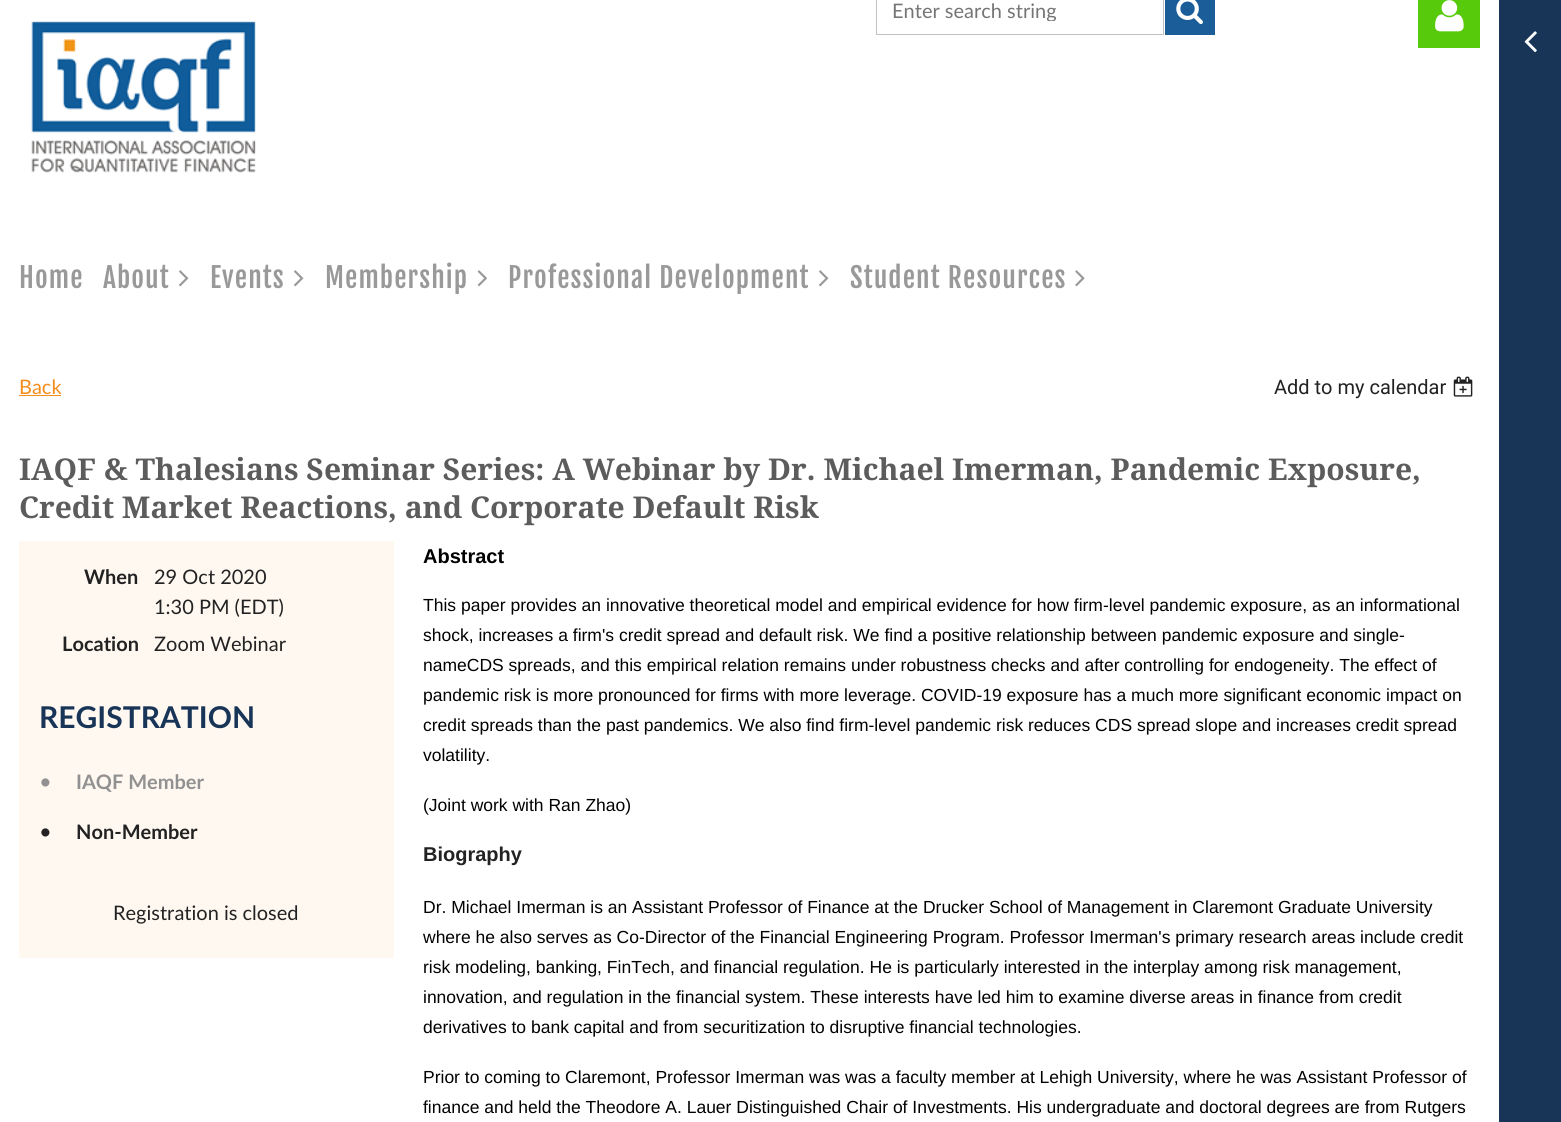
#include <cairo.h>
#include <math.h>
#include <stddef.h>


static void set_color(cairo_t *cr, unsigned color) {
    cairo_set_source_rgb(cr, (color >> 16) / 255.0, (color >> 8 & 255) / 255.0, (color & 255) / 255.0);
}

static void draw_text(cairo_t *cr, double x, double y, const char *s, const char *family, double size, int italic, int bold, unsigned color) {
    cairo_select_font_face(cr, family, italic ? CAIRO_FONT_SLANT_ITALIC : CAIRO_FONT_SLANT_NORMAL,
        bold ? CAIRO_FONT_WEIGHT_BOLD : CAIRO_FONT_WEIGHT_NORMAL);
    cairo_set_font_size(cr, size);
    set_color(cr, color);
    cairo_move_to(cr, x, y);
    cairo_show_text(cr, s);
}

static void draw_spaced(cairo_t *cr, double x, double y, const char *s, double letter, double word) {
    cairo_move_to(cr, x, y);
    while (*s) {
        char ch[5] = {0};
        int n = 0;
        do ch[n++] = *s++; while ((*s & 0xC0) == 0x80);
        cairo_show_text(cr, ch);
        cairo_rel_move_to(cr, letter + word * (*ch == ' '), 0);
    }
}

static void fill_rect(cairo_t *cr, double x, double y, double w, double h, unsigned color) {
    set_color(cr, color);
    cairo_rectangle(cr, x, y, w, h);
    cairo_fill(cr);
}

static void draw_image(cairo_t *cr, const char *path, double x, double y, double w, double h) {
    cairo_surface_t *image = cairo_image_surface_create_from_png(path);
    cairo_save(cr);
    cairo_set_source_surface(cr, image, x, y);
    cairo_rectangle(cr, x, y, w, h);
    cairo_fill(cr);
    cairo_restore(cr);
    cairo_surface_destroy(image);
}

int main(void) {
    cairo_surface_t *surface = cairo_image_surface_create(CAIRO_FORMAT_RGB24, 1561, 1122);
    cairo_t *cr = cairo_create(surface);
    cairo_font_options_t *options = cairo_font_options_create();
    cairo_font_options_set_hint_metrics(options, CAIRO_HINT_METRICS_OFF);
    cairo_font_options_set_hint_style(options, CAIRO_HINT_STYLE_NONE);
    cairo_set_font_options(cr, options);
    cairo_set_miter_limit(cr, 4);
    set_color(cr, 0xFFFFFF);
    cairo_paint(cr);
    cairo_rectangle(cr, 876.5, -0.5, 287, 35);
    set_color(cr, 0xC1C1C1);
    cairo_set_line_width(cr, 1);
    cairo_stroke(cr);
    cairo_save(cr);
    cairo_rectangle(cr, 893, 0, 255, 21);
    cairo_clip(cr);
    draw_text(cr, 892, 18, "Enter search string", "Lato", 20, 0, 0, 0x757575);
    cairo_restore(cr);
    fill_rect(cr, 1165, 0, 50, 35, 0x1A5D99);
    draw_image(cr, "assets/img1.png", 1176, 0, 27, 25);
    fill_rect(cr, 1418, 0, 62, 48, 0x57CA0C);
    draw_image(cr, "assets/img2.png", 1435, 0, 29, 32);
    draw_image(cr, "assets/img3.png", 31, 21, 225, 152);
    cairo_select_font_face(cr, "Fjalla One", CAIRO_FONT_SLANT_NORMAL, CAIRO_FONT_WEIGHT_NORMAL);
    cairo_set_font_size(cr, 27.5);
    set_color(cr, 0x999999);
    draw_spaced(cr, 19, 288, "Home", 1.1, 0);
    draw_spaced(cr, 103, 288, "About", 1.1, 0);
    draw_image(cr, "assets/img4.png", 179, 270, 10, 17);
    draw_spaced(cr, 210, 288, "Events", 1.1, 0);
    draw_image(cr, "assets/img4.png", 294, 270, 10, 17);
    draw_spaced(cr, 325, 288, "Membership", 1.1, 0);
    draw_image(cr, "assets/img5.png", 477, 270, 10, 17);
    draw_spaced(cr, 508, 288, "Professional Development", 1.1, 0);
    draw_image(cr, "assets/img4.png", 819, 270, 10, 17);
    draw_spaced(cr, 850, 288, "Student Resources", 1.1, 0);
    draw_image(cr, "assets/img6.png", 1075, 270, 10, 17);
    draw_text(cr, 19, 394, "Back", "Lato", 20, 0, 0, 0xF48D1D);
    fill_rect(cr, 19, 395, 42, 1, 0xF48D1D);
    draw_text(cr, 1274, 394, "Add to my calendar", "Roboto", 20, 0, 0, 0x222222);
    draw_image(cr, "assets/img7.png", 1453, 376, 20, 21);
    draw_text(cr, 19, 480, "IAQF & Thalesians Seminar Series: A Webinar by Dr. Michael Imerman, Pandemic Exposure,", "Droid Serif", 30, 0, 1, 0x5C5C5C);
    draw_text(cr, 19, 518, "Credit Market Reactions, and Corporate Default Risk", "Droid Serif", 30, 0, 1, 0x5C5C5C);
    fill_rect(cr, 19, 541, 375, 417, 0xFFF8F1);
    draw_text(cr, 84, 584, "When", "Lato", 20, 0, 1, 0x222222);
    draw_text(cr, 154, 584, "29 Oct 2020", "Lato", 20, 0, 0, 0x222222);
    draw_text(cr, 154, 614, "1:30 PM (EDT)", "Lato", 20, 0, 0, 0x222222);
    draw_text(cr, 62, 651, "Location", "Lato", 20, 0, 1, 0x222222);
    draw_text(cr, 154, 651, "Zoom Webinar", "Lato", 20, 0, 0, 0x222222);
    draw_text(cr, 39, 728, "REGISTRATION", "Lato", 30, 0, 1, 0x183457);
    draw_text(cr, 39, 789, "•", "Lato", 22, 0, 0, 0x929191);
    draw_text(cr, 76, 789, "IAQF Member", "Lato", 20, 0, 1, 0x929191);
    draw_text(cr, 39, 839, "•", "Lato", 22, 0, 0, 0x222222);
    draw_text(cr, 76, 839, "Non-Member", "Lato", 20, 0, 1, 0x222222);
    draw_text(cr, 113, 920, "Registration is closed", "Lato", 20, 0, 0, 0x222222);
    draw_text(cr, 423, 563, "Abstract", "Liberation Sans", 20, 0, 1, 0x000000);
    draw_text(cr, 423, 611, "This paper provides an innovative theoretical model and empirical evidence for how firm-level pandemic exposure, as an informational", "Liberation Sans", 17.5, 0, 0, 0x000000);
    draw_text(cr, 423, 641, "shock, increases a firm's credit spread and default risk. We find a positive relationship between pandemic exposure and single-", "Liberation Sans", 17.5, 0, 0, 0x000000);
    draw_text(cr, 423, 671, "nameCDS spreads, and this empirical relation remains under robustness checks and after controlling for endogeneity. The effect of", "Liberation Sans", 17.5, 0, 0, 0x000000);
    draw_text(cr, 423, 701, "pandemic risk is more pronounced for firms with more leverage. COVID-19 exposure has a much more significant economic impact on", "Liberation Sans", 17.5, 0, 0, 0x000000);
    draw_text(cr, 423, 731, "credit spreads than the past pandemics. We also find firm-level pandemic risk reduces CDS spread slope and increases credit spread", "Liberation Sans", 17.5, 0, 0, 0x000000);
    draw_text(cr, 423, 761, "volatility.", "Liberation Sans", 17.5, 0, 0, 0x000000);
    draw_text(cr, 423, 811, "(Joint work with Ran Zhao)", "Liberation Sans", 17.5, 0, 0, 0x000000);
    draw_text(cr, 423, 861, "Biography", "Liberation Sans", 20, 0, 1, 0x222222);
    draw_text(cr, 423, 913, "Dr. Michael Imerman is an Assistant Professor of Finance at the Drucker School of Management in Claremont Graduate University", "Liberation Sans", 17.5, 0, 0, 0x000000);
    draw_text(cr, 423, 943, "where he also serves as Co-Director of the Financial Engineering Program. Professor Imerman's primary research areas include credit", "Liberation Sans", 17.5, 0, 0, 0x000000);
    draw_text(cr, 423, 973, "risk modeling, banking, FinTech, and financial regulation. He is particularly interested in the interplay among risk management,", "Liberation Sans", 17.5, 0, 0, 0x000000);
    draw_text(cr, 423, 1003, "innovation, and regulation in the financial system. These interests have led him to examine diverse areas in finance from credit", "Liberation Sans", 17.5, 0, 0, 0x000000);
    draw_text(cr, 423, 1033, "derivatives to bank capital and from securitization to disruptive financial technologies.", "Liberation Sans", 17.5, 0, 0, 0x000000);
    draw_text(cr, 423, 1083, "Prior to coming to Claremont, Professor Imerman was was a faculty member at Lehigh University, where he was Assistant Professor of", "Liberation Sans", 17.5, 0, 0, 0x000000);
    draw_text(cr, 423, 1113, "finance and held the Theodore A. Lauer Distinguished Chair of Investments. His undergraduate and doctoral degrees are from Rutgers", "Liberation Sans", 17.5, 0, 0, 0x000000);
    fill_rect(cr, 1499, 0, 62, 1122, 0x183457);
    draw_image(cr, "assets/img8.png", 1524, 31, 13, 22);
    cairo_surface_write_to_png(surface, "output.png");
    cairo_font_options_destroy(options);
    cairo_destroy(cr);
    cairo_surface_destroy(surface);
    return 0;
}
